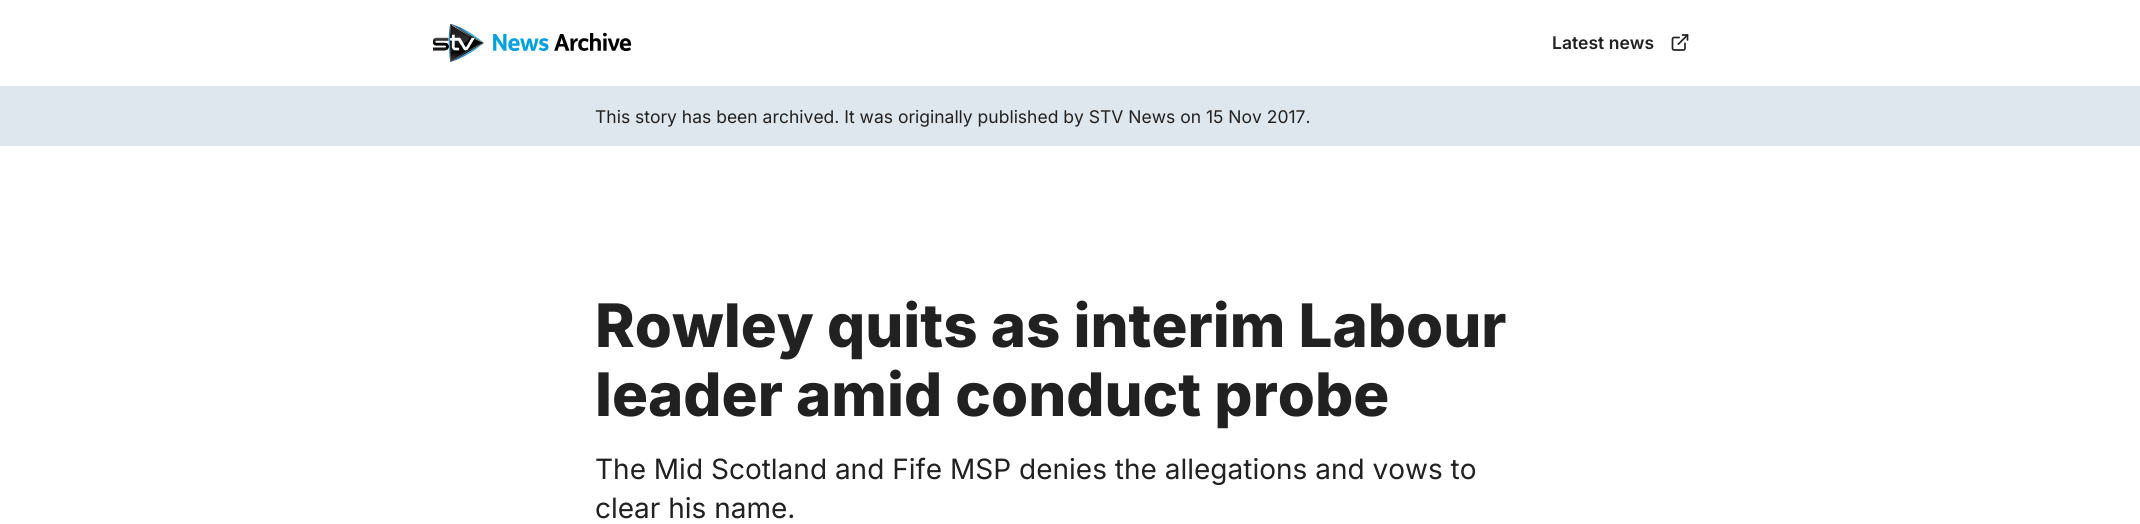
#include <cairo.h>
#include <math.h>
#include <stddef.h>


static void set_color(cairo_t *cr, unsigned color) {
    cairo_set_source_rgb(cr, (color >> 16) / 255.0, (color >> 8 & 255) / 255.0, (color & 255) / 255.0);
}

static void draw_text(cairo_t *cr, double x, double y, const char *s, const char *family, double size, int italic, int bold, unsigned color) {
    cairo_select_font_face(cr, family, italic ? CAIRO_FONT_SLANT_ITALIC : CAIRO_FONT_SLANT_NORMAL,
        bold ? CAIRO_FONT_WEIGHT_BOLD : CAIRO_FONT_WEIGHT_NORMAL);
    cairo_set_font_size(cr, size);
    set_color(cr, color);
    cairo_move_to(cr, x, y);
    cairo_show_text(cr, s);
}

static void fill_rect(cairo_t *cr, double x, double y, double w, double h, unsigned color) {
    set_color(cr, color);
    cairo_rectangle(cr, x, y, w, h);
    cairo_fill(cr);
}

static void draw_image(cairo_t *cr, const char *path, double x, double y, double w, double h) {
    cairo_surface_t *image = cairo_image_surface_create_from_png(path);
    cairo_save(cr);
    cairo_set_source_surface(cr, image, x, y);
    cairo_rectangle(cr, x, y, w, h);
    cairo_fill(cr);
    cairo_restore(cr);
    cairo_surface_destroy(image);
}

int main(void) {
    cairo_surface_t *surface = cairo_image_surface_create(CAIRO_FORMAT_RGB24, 2140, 524);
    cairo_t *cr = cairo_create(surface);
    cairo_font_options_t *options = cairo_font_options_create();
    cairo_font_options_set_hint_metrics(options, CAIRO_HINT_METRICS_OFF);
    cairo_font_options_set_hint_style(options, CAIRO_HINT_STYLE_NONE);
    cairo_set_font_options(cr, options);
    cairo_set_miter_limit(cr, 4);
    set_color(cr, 0xFFFFFF);
    cairo_paint(cr);
    draw_image(cr, "assets/img1.png", 433, 24, 199, 38);
    draw_text(cr, 1552, 49, "Latest news", "Inter SemiBold", 17.5, 0, 0, 0x212121);
    draw_image(cr, "assets/img2.png", 1671, 34, 18, 17);
    fill_rect(cr, 0, 86, 2140, 60, 0xDEE7ED);
    draw_text(cr, 595, 123, "This story has been archived. It was originally published by STV News on 15 Nov 2017.", "Inter", 17.5, 0, 0, 0x212121);
    draw_text(cr, 595, 347, "Rowley quits as interim Labour", "Inter ExtraBold", 60, 0, 0, 0x212121);
    draw_text(cr, 595, 416, "leader amid conduct probe", "Inter ExtraBold", 60, 0, 0, 0x212121);
    draw_text(cr, 595, 479, "The Mid Scotland and Fife MSP denies the allegations and vows to", "Inter", 28, 0, 0, 0x212121);
    draw_text(cr, 595, 518, "clear his name.", "Inter", 28, 0, 0, 0x212121);
    cairo_surface_write_to_png(surface, "output.png");
    cairo_font_options_destroy(options);
    cairo_destroy(cr);
    cairo_surface_destroy(surface);
    return 0;
}
